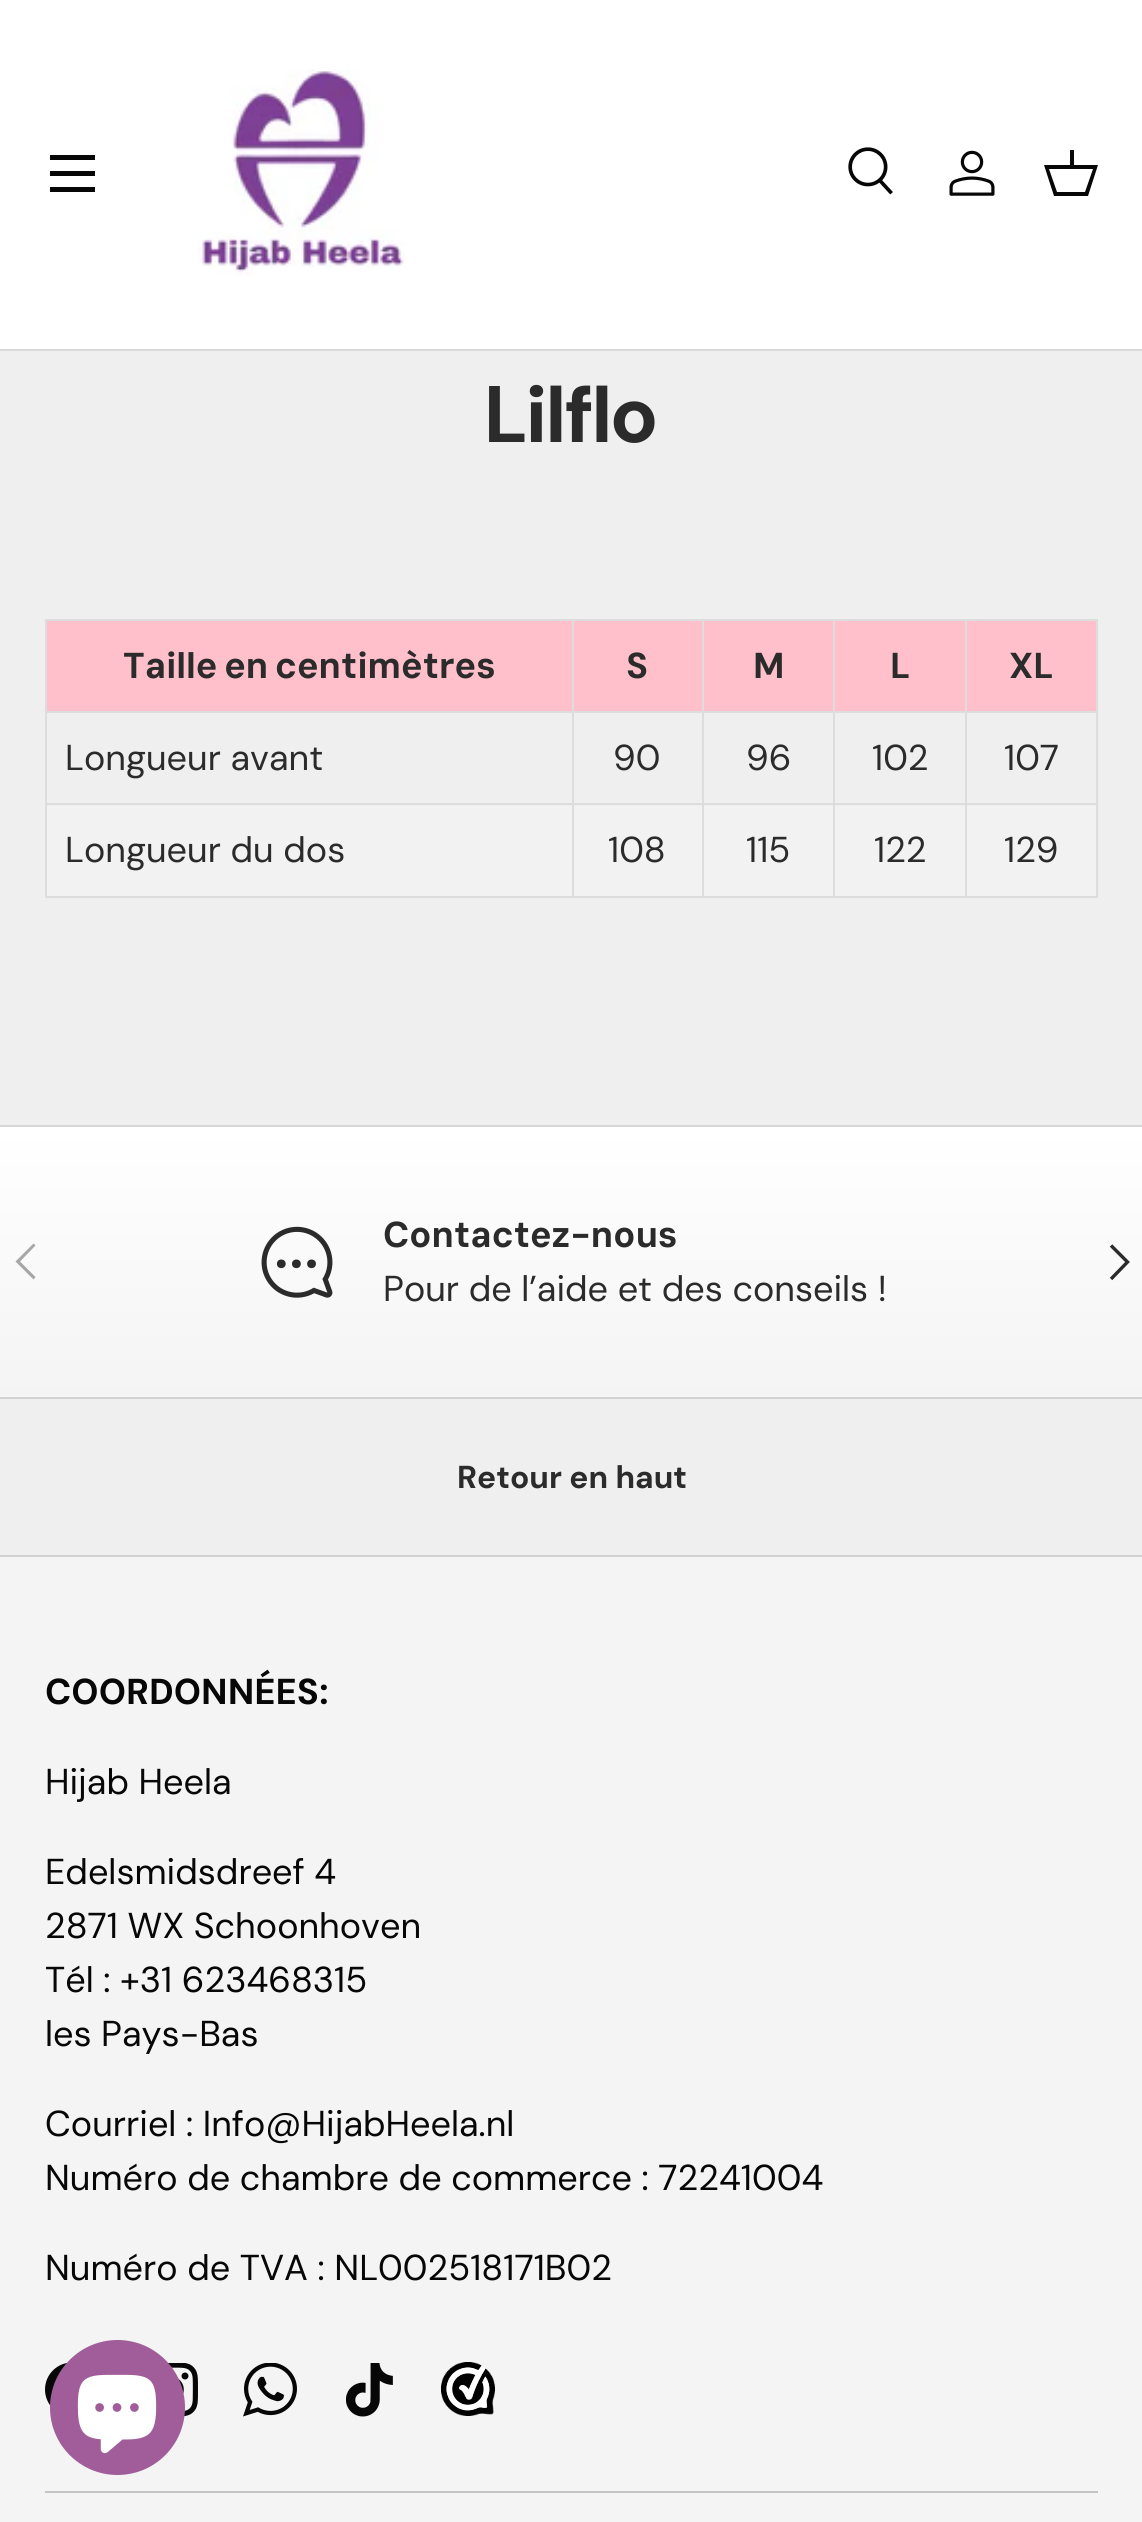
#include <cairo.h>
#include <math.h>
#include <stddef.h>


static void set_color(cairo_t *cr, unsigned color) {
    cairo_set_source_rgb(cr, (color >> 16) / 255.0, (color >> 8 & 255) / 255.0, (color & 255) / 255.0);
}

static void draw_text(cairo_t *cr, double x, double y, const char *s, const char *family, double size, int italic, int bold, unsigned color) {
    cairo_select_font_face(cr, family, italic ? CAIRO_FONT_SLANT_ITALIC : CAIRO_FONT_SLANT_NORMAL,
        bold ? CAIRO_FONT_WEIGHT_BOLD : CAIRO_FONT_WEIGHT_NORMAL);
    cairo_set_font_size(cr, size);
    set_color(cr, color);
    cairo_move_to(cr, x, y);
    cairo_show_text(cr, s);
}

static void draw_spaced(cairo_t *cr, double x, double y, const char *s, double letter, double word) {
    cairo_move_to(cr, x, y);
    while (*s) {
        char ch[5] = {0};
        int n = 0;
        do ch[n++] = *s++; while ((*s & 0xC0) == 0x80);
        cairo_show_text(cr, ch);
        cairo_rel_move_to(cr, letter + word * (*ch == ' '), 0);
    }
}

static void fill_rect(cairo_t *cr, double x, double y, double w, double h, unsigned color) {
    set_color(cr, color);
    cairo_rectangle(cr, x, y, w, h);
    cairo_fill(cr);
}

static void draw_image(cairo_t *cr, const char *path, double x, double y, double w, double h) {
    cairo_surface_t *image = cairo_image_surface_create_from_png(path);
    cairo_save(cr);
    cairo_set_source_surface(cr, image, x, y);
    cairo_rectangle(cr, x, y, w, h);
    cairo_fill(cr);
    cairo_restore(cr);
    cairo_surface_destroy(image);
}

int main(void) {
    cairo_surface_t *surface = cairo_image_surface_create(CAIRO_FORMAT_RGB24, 1142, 2522);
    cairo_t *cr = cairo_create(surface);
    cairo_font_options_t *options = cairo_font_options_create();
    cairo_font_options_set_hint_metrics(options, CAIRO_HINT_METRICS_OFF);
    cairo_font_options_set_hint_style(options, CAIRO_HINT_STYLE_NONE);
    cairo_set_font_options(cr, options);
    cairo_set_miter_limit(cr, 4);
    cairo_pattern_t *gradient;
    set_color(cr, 0xEFEFEF);
    cairo_paint(cr);
    fill_rect(cr, 0, 0, 1142, 349, 0xFFFFFF);
    fill_rect(cr, 0, 349, 1142, 2, 0xDADADA);
    fill_rect(cr, 50, 155, 45, 5, 0x070707);
    fill_rect(cr, 50, 187, 45, 5, 0x070707);
    fill_rect(cr, 50, 171, 45, 5, 0x070707);
    draw_image(cr, "assets/img1.png", 198, 69, 207, 207);
    draw_image(cr, "assets/img2.png", 848, 147, 45, 48);
    draw_image(cr, "assets/img3.png", 949, 150, 46, 46);
    cairo_new_path(cr);
    cairo_move_to(cr, 1070, 165);
    cairo_line_to(cr, 1070, 150);
    cairo_line_to(cr, 1074, 150);
    cairo_line_to(cr, 1074, 165);
    cairo_line_to(cr, 1098, 165);
    cairo_line_to(cr, 1088, 196);
    cairo_line_to(cr, 1054, 196);
    cairo_line_to(cr, 1044, 165);
    cairo_close_path(cr);
    cairo_move_to(cr, 1049, 169);
    cairo_line_to(cr, 1057, 192);
    cairo_line_to(cr, 1085, 192);
    cairo_line_to(cr, 1093, 169);
    cairo_close_path(cr);
    cairo_fill(cr);
    draw_text(cr, 485, 442, "Lilflo", "DM Sans", 80, 0, 1, 0x2A2B2A);
    fill_rect(cr, 47, 621, 525, 90, 0xFFC0CB);
    fill_rect(cr, 965, 619, 133, 2, 0xDDDDDD);
    fill_rect(cr, 965, 711, 133, 2, 0xDDDDDD);
    fill_rect(cr, 965, 803, 133, 2, 0xDDDDDD);
    fill_rect(cr, 47, 806, 1049, 90, 0xF2F2F2);
    fill_rect(cr, 1096, 803, 2, 95, 0xDDDDDD);
    fill_rect(cr, 965, 896, 133, 2, 0xDDDDDD);
    fill_rect(cr, 965, 803, 2, 95, 0xDDDDDD);
    fill_rect(cr, 833, 803, 135, 2, 0xDDDDDD);
    fill_rect(cr, 965, 711, 2, 95, 0xDDDDDD);
    fill_rect(cr, 833, 711, 135, 2, 0xDDDDDD);
    fill_rect(cr, 965, 619, 2, 94, 0xDDDDDD);
    fill_rect(cr, 833, 619, 135, 2, 0xDDDDDD);
    fill_rect(cr, 833, 896, 135, 2, 0xDDDDDD);
    fill_rect(cr, 833, 803, 2, 95, 0xDDDDDD);
    fill_rect(cr, 702, 803, 133, 2, 0xDDDDDD);
    fill_rect(cr, 833, 711, 2, 95, 0xDDDDDD);
    fill_rect(cr, 702, 711, 133, 2, 0xDDDDDD);
    fill_rect(cr, 833, 619, 2, 94, 0xDDDDDD);
    fill_rect(cr, 702, 619, 133, 2, 0xDDDDDD);
    fill_rect(cr, 702, 896, 133, 2, 0xDDDDDD);
    fill_rect(cr, 702, 803, 2, 95, 0xDDDDDD);
    fill_rect(cr, 572, 803, 132, 2, 0xDDDDDD);
    fill_rect(cr, 702, 711, 2, 95, 0xDDDDDD);
    fill_rect(cr, 572, 711, 132, 2, 0xDDDDDD);
    fill_rect(cr, 702, 619, 2, 94, 0xDDDDDD);
    fill_rect(cr, 572, 619, 132, 2, 0xDDDDDD);
    fill_rect(cr, 572, 896, 132, 2, 0xDDDDDD);
    fill_rect(cr, 572, 803, 2, 95, 0xDDDDDD);
    fill_rect(cr, 45, 803, 529, 2, 0xDDDDDD);
    fill_rect(cr, 572, 711, 2, 95, 0xDDDDDD);
    fill_rect(cr, 45, 711, 529, 2, 0xDDDDDD);
    fill_rect(cr, 572, 619, 2, 94, 0xDDDDDD);
    fill_rect(cr, 45, 619, 529, 2, 0xDDDDDD);
    fill_rect(cr, 45, 896, 529, 2, 0xDDDDDD);
    fill_rect(cr, 45, 803, 2, 95, 0xDDDDDD);
    fill_rect(cr, 45, 711, 2, 95, 0xDDDDDD);
    fill_rect(cr, 45, 619, 2, 94, 0xDDDDDD);
    cairo_select_font_face(cr, "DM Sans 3", CAIRO_FONT_SLANT_NORMAL, CAIRO_FONT_WEIGHT_BOLD);
    cairo_set_font_size(cr, 36);
    set_color(cr, 0x2A2B2A);
    draw_spaced(cr, 123, 678, "Taille en centimètres", 0, -2);
    fill_rect(cr, 574, 621, 128, 90, 0xFFC0CB);
    draw_text(cr, 626, 678, "S", "DM Sans 3", 36, 0, 1, 0x2A2B2A);
    fill_rect(cr, 704, 621, 129, 90, 0xFFC0CB);
    draw_text(cr, 753, 678, "M", "DM Sans 3", 36, 0, 1, 0x2A2B2A);
    fill_rect(cr, 835, 621, 130, 90, 0xFFC0CB);
    draw_text(cr, 890, 678, "L", "DM Sans 3", 36, 0, 1, 0x2A2B2A);
    fill_rect(cr, 967, 621, 129, 90, 0xFFC0CB);
    fill_rect(cr, 1096, 711, 2, 95, 0xDDDDDD);
    fill_rect(cr, 1096, 619, 2, 94, 0xDDDDDD);
    draw_text(cr, 1009, 678, "XL", "DM Sans 3", 36, 0, 1, 0x2A2B2A);
    draw_text(cr, 65, 770, "Longueur avant", "DM Sans", 36, 0, 0, 0x2A2B2A);
    draw_text(cr, 613, 770, "90", "DM Sans", 36, 0, 0, 0x2A2B2A);
    draw_text(cr, 746, 770, "96", "DM Sans", 36, 0, 0, 0x2A2B2A);
    draw_text(cr, 872, 770, "102", "DM Sans", 36, 0, 0, 0x2A2B2A);
    draw_text(cr, 1004, 770, "107", "DM Sans", 36, 0, 0, 0x2A2B2A);
    draw_text(cr, 65, 862, "Longueur du dos", "DM Sans", 36, 0, 0, 0x2A2B2A);
    draw_text(cr, 608, 862, "108", "DM Sans", 36, 0, 0, 0x2A2B2A);
    draw_text(cr, 746, 862, "115", "DM Sans", 36, 0, 0, 0x2A2B2A);
    draw_text(cr, 874, 862, "122", "DM Sans", 36, 0, 0, 0x2A2B2A);
    draw_text(cr, 1004, 862, "129", "DM Sans", 36, 0, 0, 0x2A2B2A);
    gradient = cairo_pattern_create_linear(572, 1127, 572, 1397);
    cairo_pattern_add_color_stop_rgba(gradient, 0, 1, 1, 1, 1);
    cairo_pattern_add_color_stop_rgba(gradient, 1, 0.957, 0.957, 0.957, 1);
    cairo_set_source(cr, gradient);
    cairo_pattern_destroy(gradient);
    cairo_rectangle(cr, 0, 1127, 1142, 270);
    cairo_fill(cr);
    fill_rect(cr, 0, 1125, 1142, 2, 0xD6D6D6);
    draw_image(cr, "assets/img4.png", 261, 1226, 72, 72);
    draw_text(cr, 383, 1247, "Contactez-nous", "DM Sans 3", 36, 0, 1, 0x2A2B2A);
    draw_text(cr, 383, 1301, "Pour de l’aide et des conseils !", "DM Sans", 36, 0, 0, 0x2A2B2A);
    set_color(cr, 0xA7A7A7);
    cairo_new_path(cr);
    cairo_move_to(cr, 15.5, 1261.5);
    cairo_line_to(cr, 33.5, 1243.5);
    cairo_line_to(cr, 35.5, 1245.5);
    cairo_line_to(cr, 20, 1261.5);
    cairo_line_to(cr, 35.5, 1277);
    cairo_line_to(cr, 33.5, 1279.5);
    cairo_close_path(cr);
    cairo_fill(cr);
    cairo_new_path(cr);
    cairo_move_to(cr, 1111, 1245.5);
    cairo_line_to(cr, 1127.5, 1262);
    cairo_line_to(cr, 1111, 1279);
    set_color(cr, 0x2A2B2A);
    cairo_set_line_width(cr, 3.4);
    cairo_stroke(cr);
    fill_rect(cr, 0, 1397, 1142, 2, 0xD1D2D1);
    fill_rect(cr, 0, 1555, 1142, 2, 0xD1D2D1);
    draw_text(cr, 457, 1488, "Retour en haut", "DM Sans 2", 31.75, 0, 1, 0x2A2B2A);
    fill_rect(cr, 0, 1557, 1142, 965, 0xF4F4F4);
    draw_text(cr, 45, 1704, "COORDONNÉES:", "DM Sans 3", 36, 0, 1, 0x070707);
    draw_text(cr, 45, 1794, "Hijab Heela", "DM Sans", 36, 0, 0, 0x070707);
    draw_text(cr, 45, 1884, "Edelsmidsdreef 4", "DM Sans", 36, 0, 0, 0x070707);
    draw_text(cr, 45, 1938, "2871 WX Schoonhoven", "DM Sans", 36, 0, 0, 0x070707);
    draw_text(cr, 45, 1992, "Tél : +31 623468315", "DM Sans", 36, 0, 0, 0x070707);
    draw_text(cr, 45, 2046, "les Pays-Bas", "DM Sans", 36, 0, 0, 0x070707);
    draw_text(cr, 45, 2136, "Courriel : Info@HijabHeela.nl", "DM Sans", 36, 0, 0, 0x070707);
    draw_text(cr, 45, 2190, "Numéro de chambre de commerce : 72241004", "DM Sans", 36, 0, 0, 0x070707);
    draw_text(cr, 45, 2280, "Numéro de TVA : NL002518171B02", "DM Sans", 36, 0, 0, 0x070707);
    draw_image(cr, "assets/img5.png", 45, 2363, 22, 44);
    draw_image(cr, "assets/img6.png", 168, 2363, 30, 54);
    draw_image(cr, "assets/img7.png", 243, 2363, 54, 54);
    draw_image(cr, "assets/img8.png", 346, 2363, 47, 54);
    draw_image(cr, "assets/img9.png", 441, 2362, 54, 54);
    fill_rect(cr, 45, 2491, 1053, 2, 0xC5C5C5);
    set_color(cr, 0xA05D9A);
    cairo_arc(cr, 117.5, 2407.5, 67.5, 0, 2 * M_PI);
    cairo_fill(cr);
    draw_image(cr, "assets/img10.png", 77, 2374, 80, 80);
    cairo_surface_write_to_png(surface, "output.png");
    cairo_font_options_destroy(options);
    cairo_destroy(cr);
    cairo_surface_destroy(surface);
    return 0;
}
